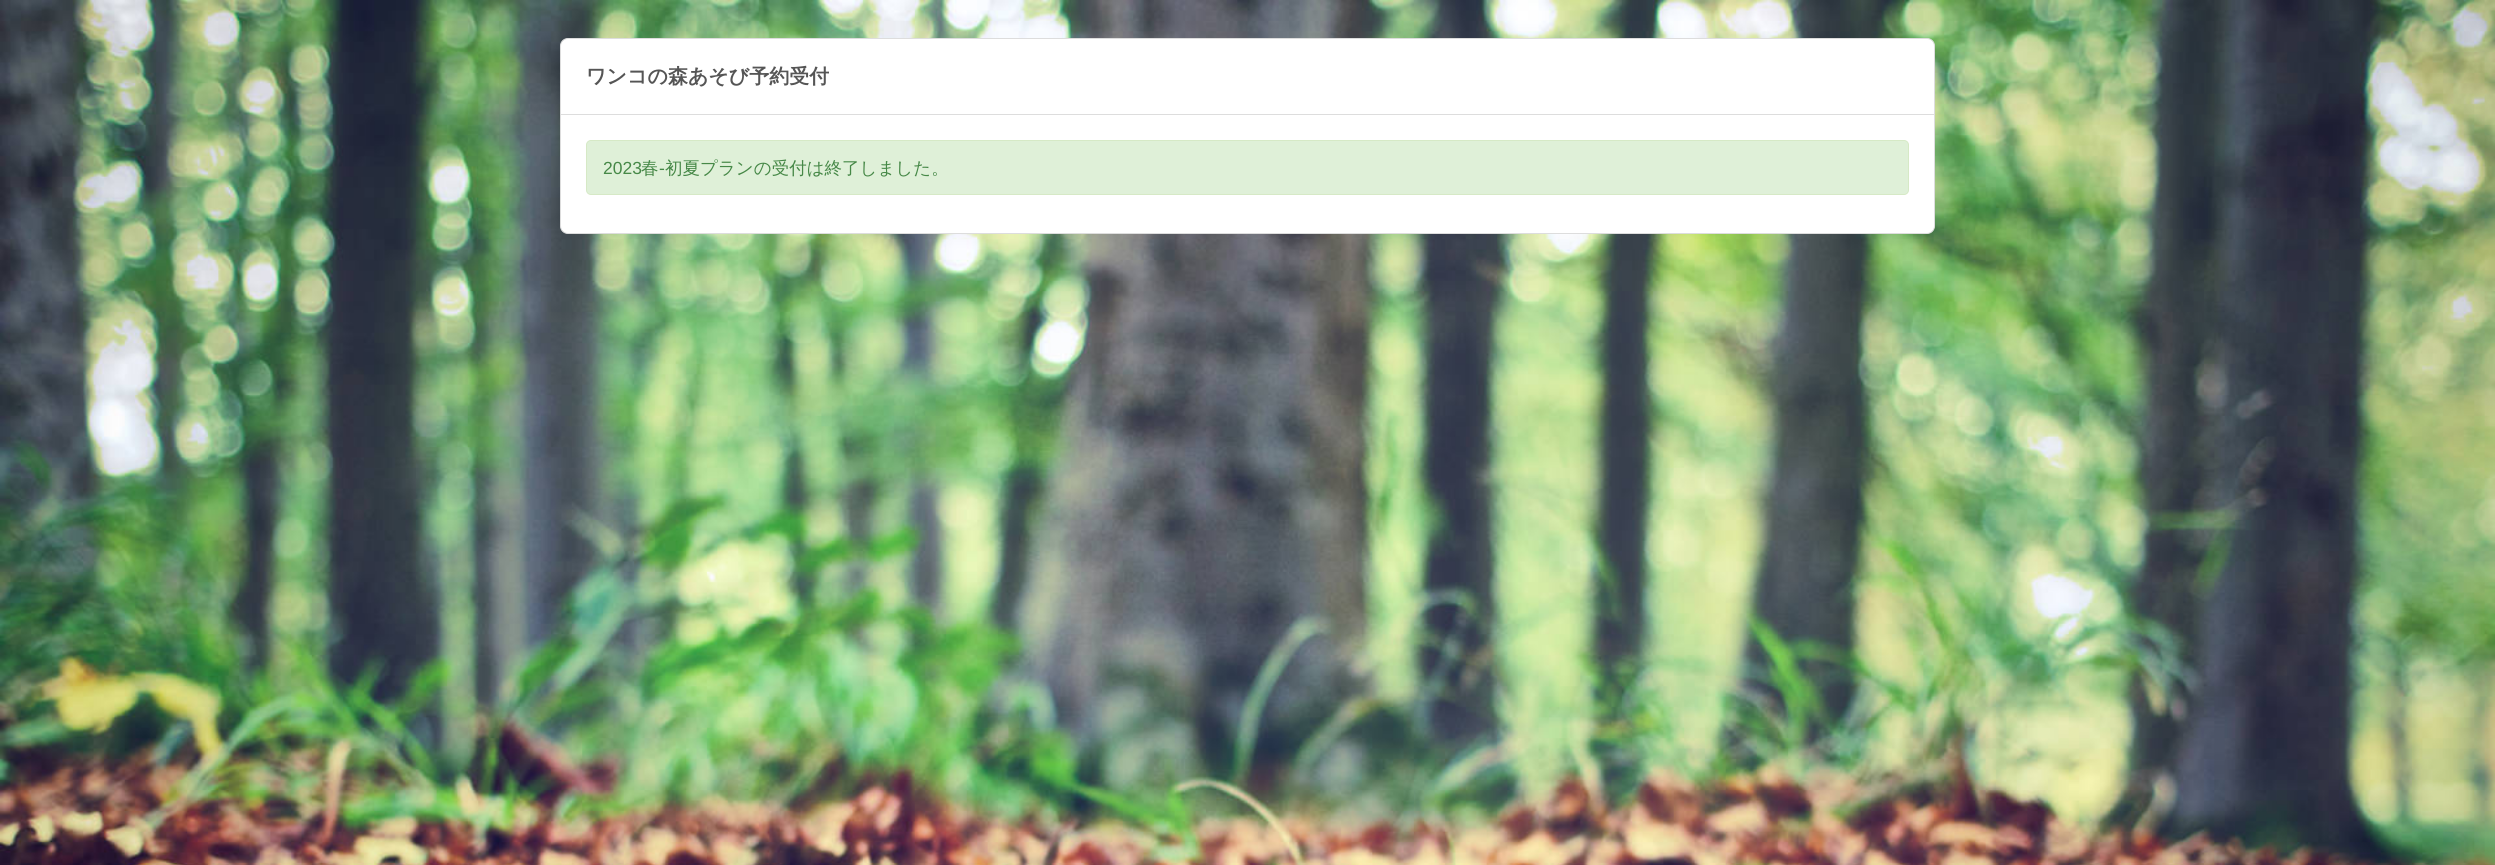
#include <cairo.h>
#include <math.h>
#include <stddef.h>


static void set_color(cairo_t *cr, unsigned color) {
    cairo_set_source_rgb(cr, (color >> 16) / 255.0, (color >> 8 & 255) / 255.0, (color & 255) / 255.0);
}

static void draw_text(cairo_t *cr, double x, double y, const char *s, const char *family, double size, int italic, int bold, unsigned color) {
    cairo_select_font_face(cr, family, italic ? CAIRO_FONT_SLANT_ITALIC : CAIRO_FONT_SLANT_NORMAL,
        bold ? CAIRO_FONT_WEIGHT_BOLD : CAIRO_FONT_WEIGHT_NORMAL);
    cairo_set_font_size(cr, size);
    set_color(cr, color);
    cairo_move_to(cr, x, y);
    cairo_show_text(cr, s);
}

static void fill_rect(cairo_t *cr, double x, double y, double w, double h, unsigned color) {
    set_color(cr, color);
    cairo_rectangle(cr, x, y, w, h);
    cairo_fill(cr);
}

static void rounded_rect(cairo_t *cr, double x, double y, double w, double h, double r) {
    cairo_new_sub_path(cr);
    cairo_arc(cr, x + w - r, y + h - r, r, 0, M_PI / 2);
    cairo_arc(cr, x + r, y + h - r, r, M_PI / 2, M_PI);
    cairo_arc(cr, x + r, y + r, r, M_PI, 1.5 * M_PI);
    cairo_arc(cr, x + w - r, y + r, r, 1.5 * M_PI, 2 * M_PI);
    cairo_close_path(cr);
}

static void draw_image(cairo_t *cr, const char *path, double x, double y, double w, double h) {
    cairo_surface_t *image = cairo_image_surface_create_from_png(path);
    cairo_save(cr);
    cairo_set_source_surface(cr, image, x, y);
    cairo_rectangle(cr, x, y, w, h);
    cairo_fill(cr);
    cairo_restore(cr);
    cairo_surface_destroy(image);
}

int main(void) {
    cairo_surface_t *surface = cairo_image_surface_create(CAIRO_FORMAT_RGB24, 2495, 865);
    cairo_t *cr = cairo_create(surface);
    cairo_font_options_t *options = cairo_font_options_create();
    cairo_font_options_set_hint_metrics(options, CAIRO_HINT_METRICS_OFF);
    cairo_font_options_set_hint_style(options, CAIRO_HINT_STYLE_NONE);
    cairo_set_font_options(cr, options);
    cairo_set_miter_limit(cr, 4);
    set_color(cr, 0xFFFFFF);
    cairo_paint(cr);
    draw_image(cr, "assets/img1.png", 0, 0, 2495, 865);
    set_color(cr, 0xFFFFFF);
    rounded_rect(cr, 560.5, 38.5, 1374, 195, 7.5);
    cairo_fill_preserve(cr);
    set_color(cr, 0xDDDDDD);
    cairo_set_line_width(cr, 1);
    cairo_stroke(cr);
    fill_rect(cr, 561, 114, 1373, 1, 0xDDDDDD);
    draw_text(cr, 586, 83, "ワンコの森あそび予約受付", "WenQuanYi Zen Hei", 20, 0, 1, 0x555555);
    set_color(cr, 0xDFF0D8);
    rounded_rect(cr, 586.5, 140.5, 1322, 54, 4.5);
    cairo_fill_preserve(cr);
    set_color(cr, 0xD6E9C6);
    cairo_stroke(cr);
    draw_text(cr, 603, 174, "2023", "Liberation Sans", 17.5, 0, 0, 0x468847);
    draw_text(cr, 641, 174, "春", "WenQuanYi Zen Hei Medium", 17.5, 0, 0, 0x468847);
    draw_text(cr, 659, 174, "-", "Liberation Sans", 17.5, 0, 0, 0x468847);
    draw_text(cr, 665, 174, "初夏プランの受付は終了しました。", "WenQuanYi Zen Hei Medium", 17.5, 0, 0, 0x468847);
    cairo_surface_write_to_png(surface, "output.png");
    cairo_font_options_destroy(options);
    cairo_destroy(cr);
    cairo_surface_destroy(surface);
    return 0;
}
